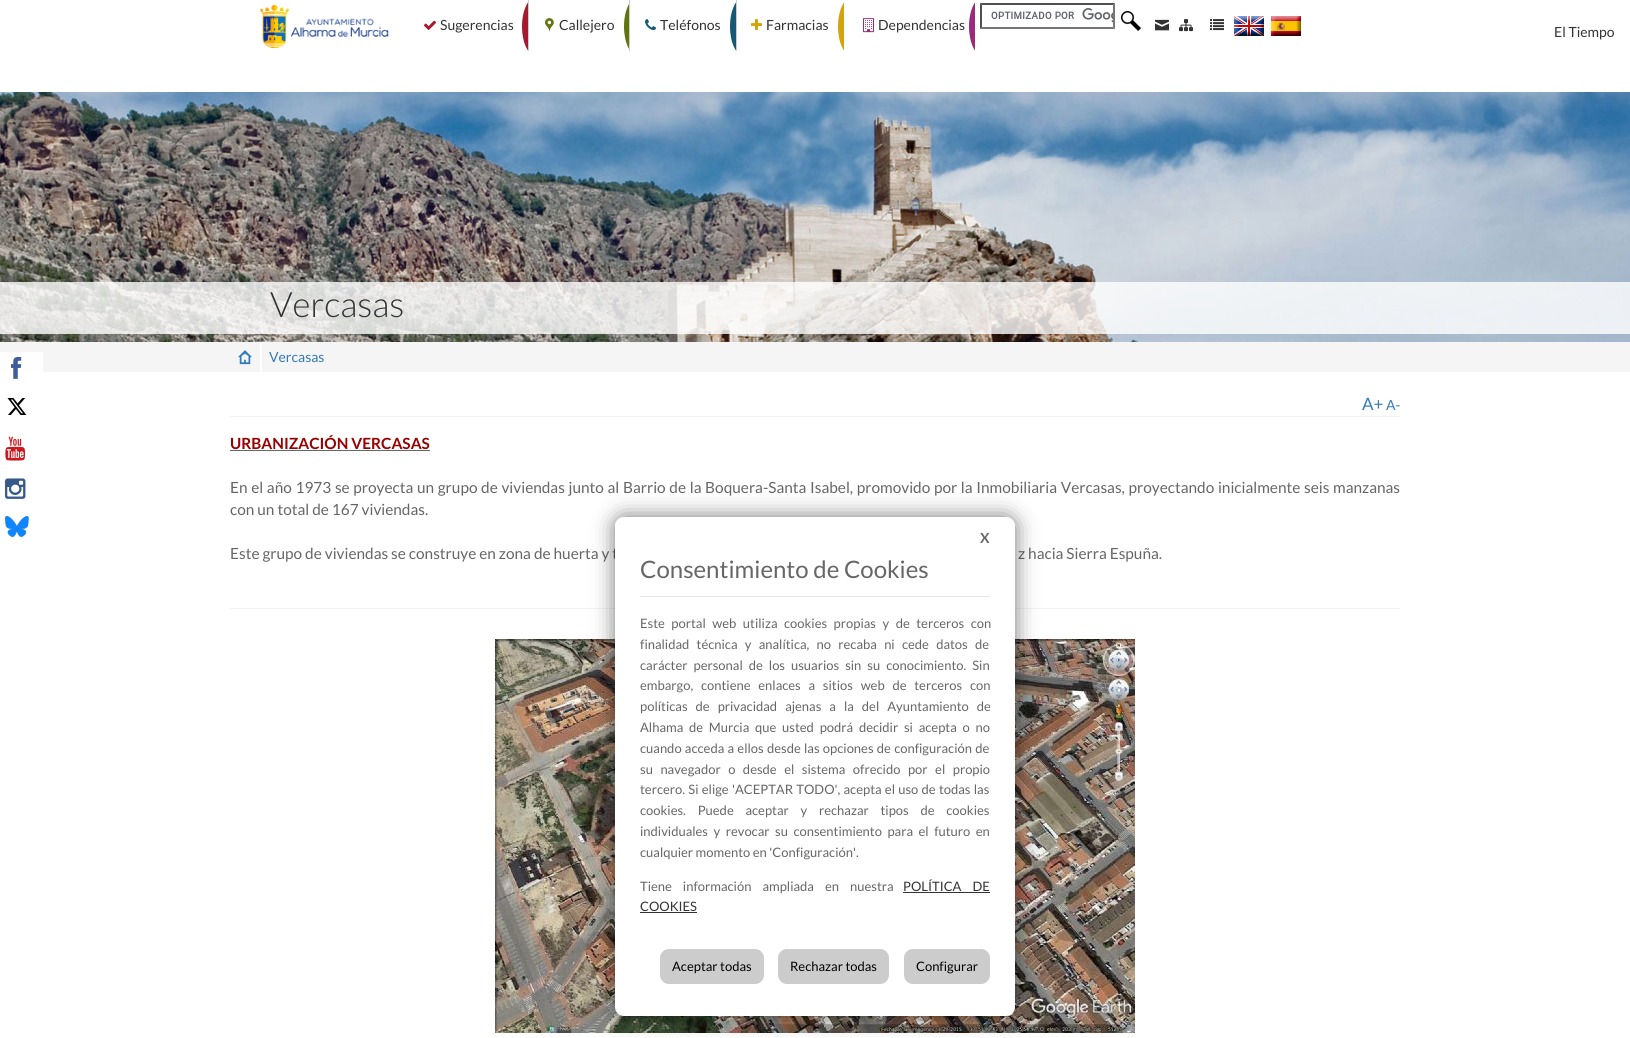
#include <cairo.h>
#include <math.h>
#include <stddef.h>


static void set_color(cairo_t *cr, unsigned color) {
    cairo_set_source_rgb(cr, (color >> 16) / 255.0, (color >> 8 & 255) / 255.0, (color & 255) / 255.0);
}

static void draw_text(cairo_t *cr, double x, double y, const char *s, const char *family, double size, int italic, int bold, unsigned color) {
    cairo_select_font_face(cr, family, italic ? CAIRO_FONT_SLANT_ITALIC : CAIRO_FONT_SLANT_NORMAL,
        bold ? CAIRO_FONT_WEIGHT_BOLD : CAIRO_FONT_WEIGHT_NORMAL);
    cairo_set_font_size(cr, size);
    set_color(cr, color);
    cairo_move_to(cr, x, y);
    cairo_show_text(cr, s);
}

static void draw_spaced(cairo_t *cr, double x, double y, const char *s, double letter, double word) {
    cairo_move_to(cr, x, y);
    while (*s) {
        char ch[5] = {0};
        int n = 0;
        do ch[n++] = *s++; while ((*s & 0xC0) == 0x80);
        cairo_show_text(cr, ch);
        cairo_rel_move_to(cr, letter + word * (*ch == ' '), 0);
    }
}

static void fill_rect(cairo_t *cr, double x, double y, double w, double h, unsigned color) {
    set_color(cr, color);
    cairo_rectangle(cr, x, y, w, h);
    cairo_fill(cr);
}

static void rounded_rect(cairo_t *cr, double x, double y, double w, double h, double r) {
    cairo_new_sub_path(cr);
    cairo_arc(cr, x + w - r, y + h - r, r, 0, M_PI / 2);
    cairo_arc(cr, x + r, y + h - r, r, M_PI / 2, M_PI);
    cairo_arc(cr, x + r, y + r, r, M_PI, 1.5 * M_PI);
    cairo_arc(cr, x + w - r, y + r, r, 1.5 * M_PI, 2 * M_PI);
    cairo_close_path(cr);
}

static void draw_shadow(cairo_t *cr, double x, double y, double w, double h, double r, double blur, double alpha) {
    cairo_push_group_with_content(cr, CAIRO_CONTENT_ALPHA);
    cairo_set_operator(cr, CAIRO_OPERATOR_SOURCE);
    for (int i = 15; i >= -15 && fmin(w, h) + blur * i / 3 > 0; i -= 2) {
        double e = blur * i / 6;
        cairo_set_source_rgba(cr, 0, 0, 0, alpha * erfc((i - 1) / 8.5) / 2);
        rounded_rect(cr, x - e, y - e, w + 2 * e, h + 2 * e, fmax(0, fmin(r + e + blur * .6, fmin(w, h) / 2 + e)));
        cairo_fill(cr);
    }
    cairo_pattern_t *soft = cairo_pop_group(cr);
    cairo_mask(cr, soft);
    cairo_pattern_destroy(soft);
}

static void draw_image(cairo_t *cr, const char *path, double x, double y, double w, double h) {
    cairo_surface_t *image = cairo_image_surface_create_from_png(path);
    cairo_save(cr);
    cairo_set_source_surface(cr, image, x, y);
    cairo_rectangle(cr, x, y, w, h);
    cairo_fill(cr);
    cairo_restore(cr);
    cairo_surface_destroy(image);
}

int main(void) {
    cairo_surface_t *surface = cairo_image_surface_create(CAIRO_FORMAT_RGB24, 1630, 1038);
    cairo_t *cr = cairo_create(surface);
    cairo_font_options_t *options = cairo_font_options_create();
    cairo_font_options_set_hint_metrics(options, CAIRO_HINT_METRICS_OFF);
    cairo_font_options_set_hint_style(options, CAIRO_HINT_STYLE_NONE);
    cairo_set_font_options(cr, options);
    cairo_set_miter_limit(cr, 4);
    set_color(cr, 0xFFFFFF);
    cairo_paint(cr);
    draw_image(cr, "assets/img1.png", 260, 5, 129, 43);
    draw_image(cr, "assets/img2.png", 424, 20, 12, 10);
    draw_text(cr, 440, 30, "Sugerencias", "Lato", 14, 0, 0, 0x333333);
    cairo_save(cr);
    cairo_rectangle(cr, 410, 0, 118, 51);
    cairo_clip(cr);
    set_color(cr, 0xA6192E);
    cairo_new_path(cr);
    cairo_move_to(cr, 537, -3.5);
    cairo_curve_to(cr, 545.5, -3.5, 552, 10, 552, 26.5);
    cairo_curve_to(cr, 552, 43, 545.5, 56.5, 537, 56.5);
    cairo_curve_to(cr, 528.5, 56.5, 522, 43, 522, 26.5);
    cairo_curve_to(cr, 522, 10, 528.5, -3.5, 537, -3.5);
    cairo_close_path(cr);
    cairo_fill(cr);
    cairo_restore(cr);
    fill_rect(cr, 528, 0, 1, 51, 0xCCCCCC);
    draw_image(cr, "assets/img3.png", 545, 18, 9, 14);
    draw_text(cr, 559, 30, "Callejero", "Lato", 14, 0, 0, 0x333333);
    cairo_save(cr);
    cairo_rectangle(cr, 529, 0, 100, 51);
    cairo_clip(cr);
    set_color(cr, 0x60750D);
    cairo_new_path(cr);
    cairo_move_to(cr, 639, -3.5);
    cairo_curve_to(cr, 647.5, -3.5, 654, 10, 654, 26.5);
    cairo_curve_to(cr, 654, 43, 647.5, 56.5, 639, 56.5);
    cairo_curve_to(cr, 630.5, 56.5, 624, 43, 624, 26.5);
    cairo_curve_to(cr, 624, 10, 630.5, -3.5, 639, -3.5);
    cairo_close_path(cr);
    cairo_fill(cr);
    cairo_restore(cr);
    fill_rect(cr, 629, 0, 1, 51, 0xCCCCCC);
    draw_image(cr, "assets/img4.png", 645, 19, 11, 12);
    draw_text(cr, 660, 30, "Teléfonos", "Lato", 14, 0, 0, 0x333333);
    cairo_save(cr);
    cairo_rectangle(cr, 630, 0, 106, 51);
    cairo_clip(cr);
    set_color(cr, 0x145976);
    cairo_new_path(cr);
    cairo_move_to(cr, 745, -3.5);
    cairo_curve_to(cr, 753.5, -3.5, 760, 10, 760, 26.5);
    cairo_curve_to(cr, 760, 43, 753.5, 56.5, 745, 56.5);
    cairo_curve_to(cr, 736.5, 56.5, 730, 43, 730, 26.5);
    cairo_curve_to(cr, 730, 10, 736.5, -3.5, 745, -3.5);
    cairo_close_path(cr);
    cairo_fill(cr);
    cairo_restore(cr);
    fill_rect(cr, 736, 0, 1, 51, 0xCCCCCC);
    draw_image(cr, "assets/img5.png", 751, 19, 11, 12);
    draw_text(cr, 766, 30, "Farmacias", "Lato", 14, 0, 0, 0x333333);
    cairo_save(cr);
    cairo_rectangle(cr, 737, 0, 107, 51);
    cairo_clip(cr);
    set_color(cr, 0xD5A30D);
    cairo_new_path(cr);
    cairo_move_to(cr, 853, -3.5);
    cairo_curve_to(cr, 861.5, -3.5, 868, 10, 868, 26.5);
    cairo_curve_to(cr, 868, 43, 861.5, 56.5, 853, 56.5);
    cairo_curve_to(cr, 844.5, 56.5, 838, 43, 838, 26.5);
    cairo_curve_to(cr, 838, 10, 844.5, -3.5, 853, -3.5);
    cairo_close_path(cr);
    cairo_fill(cr);
    cairo_restore(cr);
    draw_image(cr, "assets/img6.png", 863, 18, 11, 15);
    draw_text(cr, 878, 30, "Dependencias", "Lato", 14, 0, 0, 0x333333);
    cairo_save(cr);
    cairo_rectangle(cr, 844, 0, 131, 51);
    cairo_clip(cr);
    set_color(cr, 0x9D297D);
    cairo_new_path(cr);
    cairo_move_to(cr, 984, -3.5);
    cairo_curve_to(cr, 992.5, -3.5, 999, 10, 999, 26.5);
    cairo_curve_to(cr, 999, 43, 992.5, 56.5, 984, 56.5);
    cairo_curve_to(cr, 975.5, 56.5, 969, 43, 969, 26.5);
    cairo_curve_to(cr, 969, 10, 975.5, -3.5, 984, -3.5);
    cairo_close_path(cr);
    cairo_fill(cr);
    cairo_restore(cr);
    draw_image(cr, "assets/img7.png", 991, 8, 122, 15);
    set_color(cr, 0x4F4F4F);
    cairo_new_path(cr);
    cairo_move_to(cr, 980, 3);
    cairo_line_to(cr, 1115, 3);
    cairo_line_to(cr, 1113, 5);
    cairo_line_to(cr, 982, 5);
    cairo_close_path(cr);
    cairo_fill(cr);
    set_color(cr, 0x767676);
    cairo_new_path(cr);
    cairo_move_to(cr, 1115, 3);
    cairo_line_to(cr, 1115, 29);
    cairo_line_to(cr, 1113, 27);
    cairo_line_to(cr, 1113, 5);
    cairo_close_path(cr);
    cairo_fill(cr);
    cairo_new_path(cr);
    cairo_move_to(cr, 1115, 29);
    cairo_line_to(cr, 980, 29);
    cairo_line_to(cr, 982, 27);
    cairo_line_to(cr, 1113, 27);
    cairo_close_path(cr);
    cairo_fill(cr);
    set_color(cr, 0x4F4F4F);
    cairo_new_path(cr);
    cairo_move_to(cr, 980, 29);
    cairo_line_to(cr, 980, 3);
    cairo_line_to(cr, 982, 5);
    cairo_line_to(cr, 982, 27);
    cairo_close_path(cr);
    cairo_fill(cr);
    draw_image(cr, "assets/img8.png", 1121, 11, 20, 20);
    draw_image(cr, "assets/img9.png", 1155, 19, 14, 12);
    draw_image(cr, "assets/img10.png", 1179, 19, 14, 13);
    draw_image(cr, "assets/img11.png", 1210, 19, 14, 12);
    draw_image(cr, "assets/img12.png", 1234, 16, 30, 20);
    draw_image(cr, "assets/img13.png", 1271, 16, 30, 20);
    draw_text(cr, 1554, 37, "El Tiempo", "Lato", 14, 0, 0, 0x333333);
    draw_image(cr, "assets/img14.png", 0, 92, 1630, 250);
    cairo_set_source_rgba(cr, 1, 1, 1, 0.8);
    cairo_rectangle(cr, 0, 282, 1630, 52);
    cairo_fill(cr);
    draw_text(cr, 270, 317, "Vercasas", "Lato Light", 35, 0, 0, 0x333333);
    fill_rect(cr, 0, 342, 1630, 30, 0xF5F5F5);
    fill_rect(cr, 0, 352, 43, 20, 0xFEFEFE);
    draw_image(cr, "assets/img15.png", 11, 357, 11, 22);
    draw_image(cr, "assets/img16.png", 7, 398, 20, 17);
    draw_image(cr, "assets/img17.png", 5, 436, 21, 25);
    draw_image(cr, "assets/img18.png", 5, 478, 21, 21);
    draw_image(cr, "assets/img19.png", 5, 516, 24, 21);
    fill_rect(cr, 260, 342, 2, 30, 0xFFFFFF);
    draw_image(cr, "assets/img20.png", 238, 350, 14, 15);
    draw_text(cr, 269, 362, "Vercasas", "Lato", 14, 0, 0, 0x337AB7);
    fill_rect(cr, 230, 416, 1170, 1, 0xF3F3F3);
    draw_text(cr, 1362, 410, "A+", "Lato", 17, 0, 0, 0x337AB7);
    draw_text(cr, 1386, 410, "A-", "Lato", 14, 0, 0, 0x337AB7);
    fill_rect(cr, 230, 608, 1170, 1, 0xF3F3F3);
    draw_text(cr, 230, 449, "URBANIZACIÓN VERCASAS", "Lato", 15.4, 0, 1, 0x990000);
    fill_rect(cr, 230, 450, 200, 1, 0x666666);
    cairo_select_font_face(cr, "Lato", CAIRO_FONT_SLANT_NORMAL, CAIRO_FONT_WEIGHT_NORMAL);
    draw_spaced(cr, 230, 493, "En el año 1973 se proyecta un grupo de viviendas junto al Barrio de la Boquera-Santa Isabel, promovido por la Inmobiliaria Vercasas, proyectando inicialmente seis manzanas", 0, 0.7);
    draw_text(cr, 230, 515, "con un total de 167 viviendas.", "Lato", 15.4, 0, 0, 0x666666);
    draw_text(cr, 230, 559, "Este grupo de viviendas se construye en zona de huerta y t", "Lato", 15.4, 0, 0, 0x666666);
    draw_text(cr, 1018, 559, "z hacia Sierra Espuña.", "Lato", 15.4, 0, 0, 0x666666);
    draw_image(cr, "assets/img21.png", 495, 639, 640, 394);
    set_color(cr, 0x000000);
    draw_shadow(cr, 615, 517, 400, 499, 9, 11, 0.54);
    set_color(cr, 0xFFFFFF);
    rounded_rect(cr, 615, 517, 400, 499, 9);
    cairo_fill(cr);
    draw_text(cr, 980, 543, "X", "Lato", 14, 0, 1, 0x666666);
    fill_rect(cr, 640, 596, 350, 1, 0xE6E6E6);
    draw_text(cr, 640, 578, "Consentimiento de Cookies", "Lato", 24, 0, 0, 0x666666);
    cairo_set_font_size(cr, 13);
    draw_spaced(cr, 640, 628, "Este portal web utiliza cookies propias y de terceros con", 0, 4);
    draw_spaced(cr, 640, 649, "finalidad técnica y analítica, no recaba ni cede datos de", 0, 4.75);
    draw_spaced(cr, 640, 670, "carácter personal de los usuarios sin su conocimiento. Sin", 0, 3.5);
    draw_spaced(cr, 640, 690, "embargo, contiene enlaces a sitios web de terceros con", 0, 5.25);
    draw_spaced(cr, 640, 711, "políticas de privacidad ajenas a la del Ayuntamiento de", 0, 5.5);
    draw_spaced(cr, 640, 732, "Alhama de Murcia que usted podrá decidir si acepta o no", 0, 3.25);
    draw_spaced(cr, 640, 753, "cuando acceda a ellos desde las opciones de configuración de", 0, 0.75);
    draw_spaced(cr, 640, 774, "su navegador o desde el sistema ofrecido por el propio", 0, 5);
    draw_spaced(cr, 640, 794, "tercero. Si elige 'ACEPTAR TODO', acepta el uso de todas las", 0, 0.75);
    draw_spaced(cr, 640, 815, "cookies. Puede aceptar y rechazar tipos de cookies", 0, 9.25);
    draw_spaced(cr, 640, 836, "individuales y revocar su consentimiento para el futuro en", 0, 3);
    draw_text(cr, 640, 857, "cualquier momento en 'Configuración'.", "Lato", 13, 0, 0, 0x666666);
    draw_spaced(cr, 640, 891, "Tiene información ampliada en nuestra", 0, 8.5);
    set_color(cr, 0x333333);
    draw_spaced(cr, 903, 891, "POLÍTICA DE", 0, 8.5);
    fill_rect(cr, 903, 892, 87, 1, 0x333333);
    draw_text(cr, 640, 911, "COOKIES", "Lato", 13, 0, 0, 0x333333);
    fill_rect(cr, 640, 912, 57, 1, 0x333333);
    set_color(cr, 0xCCCCCC);
    rounded_rect(cr, 660, 949, 104, 35, 9);
    cairo_fill(cr);
    draw_text(cr, 672, 971, "Aceptar todas", "Lato", 13, 0, 0, 0x000000);
    set_color(cr, 0xCCCCCC);
    rounded_rect(cr, 778, 949, 111, 35, 9);
    cairo_fill(cr);
    draw_text(cr, 790, 971, "Rechazar todas", "Lato", 13, 0, 0, 0x000000);
    set_color(cr, 0xCCCCCC);
    rounded_rect(cr, 904, 949, 86, 35, 9);
    cairo_fill(cr);
    draw_text(cr, 916, 971, "Configurar", "Lato", 13, 0, 0, 0x000000);
    cairo_surface_write_to_png(surface, "output.png");
    cairo_font_options_destroy(options);
    cairo_destroy(cr);
    cairo_surface_destroy(surface);
    return 0;
}
